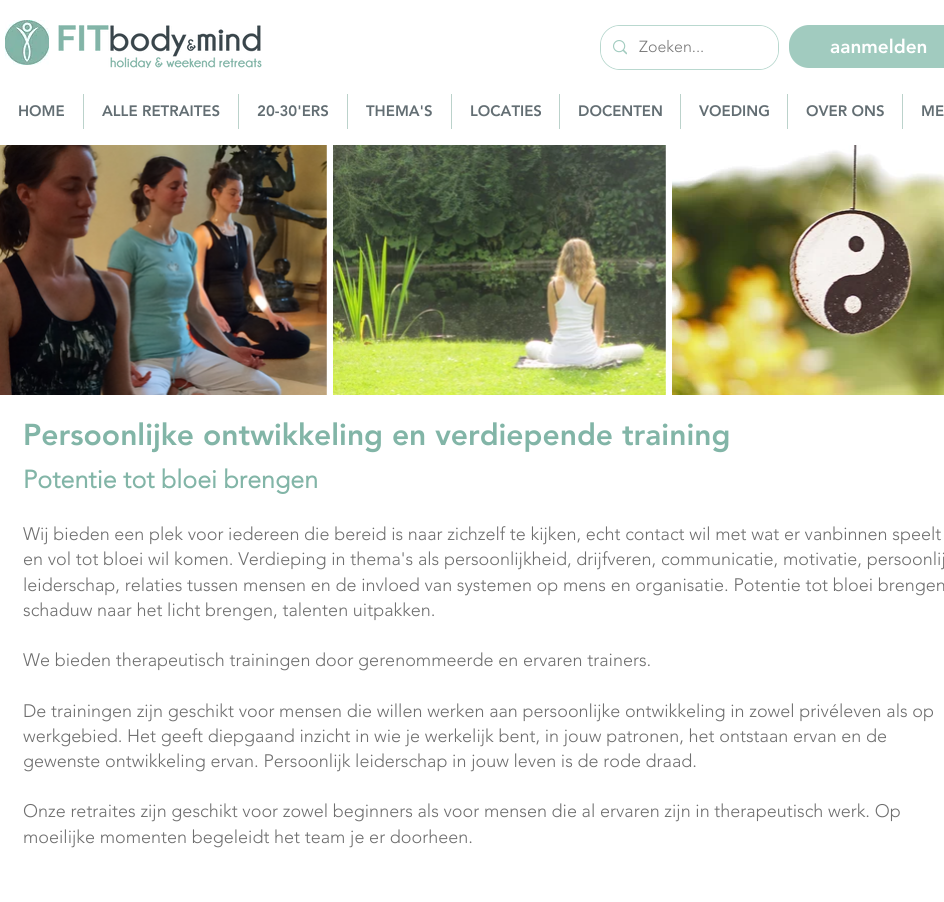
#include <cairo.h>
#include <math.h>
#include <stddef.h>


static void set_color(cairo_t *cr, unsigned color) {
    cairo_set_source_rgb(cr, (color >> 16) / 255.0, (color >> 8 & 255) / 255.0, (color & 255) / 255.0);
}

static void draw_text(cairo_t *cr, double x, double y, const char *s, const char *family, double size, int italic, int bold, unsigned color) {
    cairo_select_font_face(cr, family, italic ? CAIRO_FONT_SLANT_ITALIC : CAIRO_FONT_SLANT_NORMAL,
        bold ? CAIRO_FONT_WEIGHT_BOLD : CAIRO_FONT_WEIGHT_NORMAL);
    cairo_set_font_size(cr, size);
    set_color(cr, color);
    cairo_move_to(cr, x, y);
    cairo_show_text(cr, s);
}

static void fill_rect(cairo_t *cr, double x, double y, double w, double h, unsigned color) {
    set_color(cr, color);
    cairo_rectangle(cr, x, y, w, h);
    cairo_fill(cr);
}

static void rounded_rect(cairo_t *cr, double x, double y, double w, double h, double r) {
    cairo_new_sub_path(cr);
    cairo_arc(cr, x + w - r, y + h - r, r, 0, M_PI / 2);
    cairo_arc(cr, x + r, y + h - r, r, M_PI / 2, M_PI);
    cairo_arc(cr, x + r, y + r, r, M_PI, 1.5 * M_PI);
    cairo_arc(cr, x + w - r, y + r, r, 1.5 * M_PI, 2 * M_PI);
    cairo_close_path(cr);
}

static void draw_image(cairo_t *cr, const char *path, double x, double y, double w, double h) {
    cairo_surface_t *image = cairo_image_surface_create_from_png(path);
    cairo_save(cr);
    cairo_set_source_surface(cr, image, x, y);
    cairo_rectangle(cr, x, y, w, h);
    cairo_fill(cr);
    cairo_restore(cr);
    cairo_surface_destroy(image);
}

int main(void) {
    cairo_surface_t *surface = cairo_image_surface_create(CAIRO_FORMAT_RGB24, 944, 902);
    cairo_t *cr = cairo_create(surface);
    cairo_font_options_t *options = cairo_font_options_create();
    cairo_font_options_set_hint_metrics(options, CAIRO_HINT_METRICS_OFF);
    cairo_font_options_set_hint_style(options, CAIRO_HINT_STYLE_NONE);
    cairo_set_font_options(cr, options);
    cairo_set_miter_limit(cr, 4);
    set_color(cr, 0xFFFFFF);
    cairo_paint(cr);
    draw_image(cr, "assets/img1.png", 5, 20, 44, 45);
    draw_image(cr, "assets/img2.png", 58, 25, 204, 43);
    rounded_rect(cr, 600.5, 25.5, 178, 44, 19.5);
    set_color(cr, 0xB9D8CF);
    cairo_set_line_width(cr, 1);
    cairo_stroke(cr);
    set_color(cr, 0xFFFFFF);
    rounded_rect(cr, 601, 26, 177, 43, 19);
    cairo_fill(cr);
    draw_image(cr, "assets/img3.png", 613, 40, 14, 15);
    draw_text(cr, 639, 52, "Zoeken...", "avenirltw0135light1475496 Light", 16, 0, 0, 0x787878);
    set_color(cr, 0xA1CBBF);
    rounded_rect(cr, 789, 25, 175, 43, 20);
    cairo_fill(cr);
    draw_text(cr, 830, 53, "aanmelden", "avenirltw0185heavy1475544 Black", 19, 0, 0, 0xFFFFFF);
    draw_text(cr, 18, 116, "HOME", "avenirltw0185heavy1475544 Black", 15, 0, 0, 0x636E73);
    fill_rect(cr, 83, 94, 1, 35, 0xBBD2CB);
    draw_text(cr, 102, 116, "ALLE RETRAITES", "avenirltw0185heavy1475544 Black", 15, 0, 0, 0x636E73);
    fill_rect(cr, 238, 94, 1, 35, 0xBBD2CB);
    draw_text(cr, 257, 116, "20-30'ERS", "avenirltw0185heavy1475544 Black", 15, 0, 0, 0x636E73);
    fill_rect(cr, 347, 94, 1, 35, 0xBBD2CB);
    draw_text(cr, 366, 116, "THEMA'S", "avenirltw0185heavy1475544 Black", 15, 0, 0, 0x636E73);
    fill_rect(cr, 451, 94, 1, 35, 0xBBD2CB);
    draw_text(cr, 470, 116, "LOCATIES", "avenirltw0185heavy1475544 Black", 15, 0, 0, 0x636E73);
    fill_rect(cr, 559, 94, 1, 35, 0xBBD2CB);
    draw_text(cr, 578, 116, "DOCENTEN", "avenirltw0185heavy1475544 Black", 15, 0, 0, 0x636E73);
    fill_rect(cr, 680, 94, 1, 35, 0xBBD2CB);
    draw_text(cr, 699, 116, "VOEDING", "avenirltw0185heavy1475544 Black", 15, 0, 0, 0x636E73);
    fill_rect(cr, 787, 94, 1, 35, 0xBBD2CB);
    draw_text(cr, 806, 116, "OVER ONS", "avenirltw0185heavy1475544 Black", 15, 0, 0, 0x636E73);
    fill_rect(cr, 902, 94, 1, 35, 0xBBD2CB);
    draw_text(cr, 921, 116, "ME", "avenirltw0185heavy1475544 Black", 15, 0, 0, 0x636E73);
    draw_image(cr, "assets/img4.png", 0, 145, 327, 250);
    draw_image(cr, "assets/img5.png", 333, 145, 333, 250);
    draw_image(cr, "assets/img6.png", 672, 145, 272, 250);
    draw_text(cr, 23, 445, "Persoonlijke ontwikkeling en verdiepende training", "avenirltw0185heavy1475544 Black", 30, 0, 0, 0x82B5A7);
    draw_text(cr, 23, 488, "Potentie tot bloei brengen", "avenirltw0135light1475496", 25, 0, 1, 0x82B5A7);
    draw_text(cr, 23, 540, "Wij bieden een plek voor iedereen die bereid is naar zichzelf te kijken, echt contact wil met wat er vanbinnen speelt", "avenirltw0135light1475496 Light", 18, 0, 0, 0x6E6E6E);
    draw_text(cr, 23, 565, "en vol tot bloei wil komen. Verdieping in thema's als persoonlijkheid, drijfveren, communicatie, motivatie, persoonlij", "avenirltw0135light1475496 Light", 18, 0, 0, 0x6E6E6E);
    draw_text(cr, 23, 591, "leiderschap, relaties tussen mensen en de invloed van systemen op mens en organisatie. Potentie tot bloei brengen", "avenirltw0135light1475496 Light", 18, 0, 0, 0x6E6E6E);
    draw_text(cr, 23, 616, "schaduw naar het licht brengen, talenten uitpakken.", "avenirltw0135light1475496 Light", 18, 0, 0, 0x6E6E6E);
    draw_text(cr, 23, 666, "We bieden therapeutisch trainingen door gerenommeerde en ervaren trainers.", "avenirltw0135light1475496 Light", 18, 0, 0, 0x6E6E6E);
    draw_text(cr, 23, 717, "De trainingen zijn geschikt voor mensen die willen werken aan persoonlijke ontwikkeling in zowel privéleven als op", "avenirltw0135light1475496 Light", 18, 0, 0, 0x6E6E6E);
    draw_text(cr, 23, 742, "werkgebied. Het geeft diepgaand inzicht in wie je werkelijk bent, in jouw patronen, het ontstaan ervan en de", "avenirltw0135light1475496 Light", 18, 0, 0, 0x6E6E6E);
    draw_text(cr, 23, 767, "gewenste ontwikkeling ervan. Persoonlijk leiderschap in jouw leven is de rode draad.", "avenirltw0135light1475496 Light", 18, 0, 0, 0x6E6E6E);
    draw_text(cr, 23, 817, "Onze retraites zijn geschikt voor zowel beginners als voor mensen die al ervaren zijn in therapeutisch werk. Op", "avenirltw0135light1475496 Light", 18, 0, 0, 0x6E6E6E);
    draw_text(cr, 23, 843, "moeilijke momenten begeleidt het team je er doorheen.", "avenirltw0135light1475496 Light", 18, 0, 0, 0x6E6E6E);
    cairo_surface_write_to_png(surface, "output.png");
    cairo_font_options_destroy(options);
    cairo_destroy(cr);
    cairo_surface_destroy(surface);
    return 0;
}
